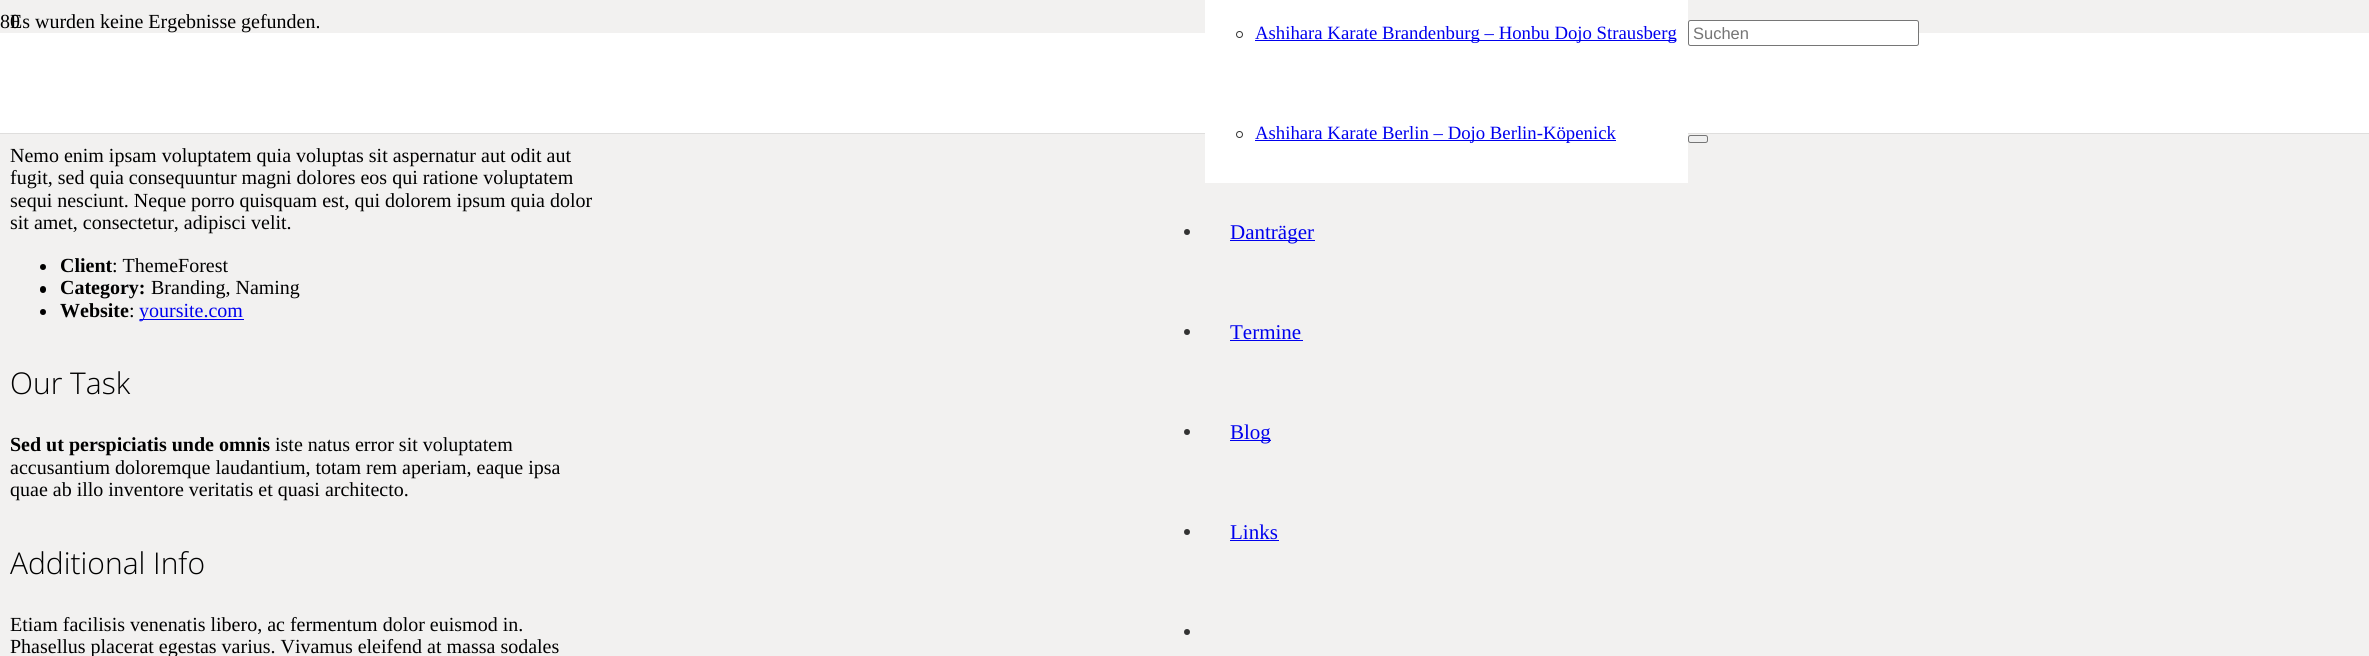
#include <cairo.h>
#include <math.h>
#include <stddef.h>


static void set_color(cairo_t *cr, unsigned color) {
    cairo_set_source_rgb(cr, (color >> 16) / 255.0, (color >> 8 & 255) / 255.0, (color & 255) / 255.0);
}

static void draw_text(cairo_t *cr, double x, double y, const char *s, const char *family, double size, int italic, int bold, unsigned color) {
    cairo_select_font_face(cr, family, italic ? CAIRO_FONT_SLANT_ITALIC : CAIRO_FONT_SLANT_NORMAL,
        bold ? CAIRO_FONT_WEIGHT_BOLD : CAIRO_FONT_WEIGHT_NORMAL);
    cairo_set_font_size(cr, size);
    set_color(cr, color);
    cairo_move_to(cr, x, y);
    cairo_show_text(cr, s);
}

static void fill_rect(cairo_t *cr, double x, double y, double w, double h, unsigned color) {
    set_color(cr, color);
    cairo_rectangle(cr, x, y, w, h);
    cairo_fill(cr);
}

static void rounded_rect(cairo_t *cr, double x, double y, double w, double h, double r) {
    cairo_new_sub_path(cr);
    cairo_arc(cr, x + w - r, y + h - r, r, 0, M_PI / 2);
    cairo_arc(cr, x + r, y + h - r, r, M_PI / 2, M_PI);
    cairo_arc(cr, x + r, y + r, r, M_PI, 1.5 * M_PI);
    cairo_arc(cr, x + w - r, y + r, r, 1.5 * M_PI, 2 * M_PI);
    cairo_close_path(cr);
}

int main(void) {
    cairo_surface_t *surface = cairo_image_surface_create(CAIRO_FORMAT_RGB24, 2369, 656);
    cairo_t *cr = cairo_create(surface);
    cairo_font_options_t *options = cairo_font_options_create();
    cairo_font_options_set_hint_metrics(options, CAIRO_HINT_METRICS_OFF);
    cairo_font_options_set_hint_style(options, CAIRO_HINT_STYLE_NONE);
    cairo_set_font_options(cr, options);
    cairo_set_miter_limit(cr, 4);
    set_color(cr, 0xF2F1F0);
    cairo_paint(cr);
    draw_text(cr, 10, 28, "Es wurden keine Ergebnisse gefunden.", "Liberation Serif", 20, 0, 0, 0x000000);
    draw_text(cr, 10, 162, "Nemo enim ipsam voluptatem quia voluptas sit aspernatur aut odit aut", "Liberation Serif", 20, 0, 0, 0x000000);
    draw_text(cr, 10, 184, "fugit, sed quia consequuntur magni dolores eos qui ratione voluptatem", "Liberation Serif", 20, 0, 0, 0x000000);
    draw_text(cr, 10, 207, "sequi nesciunt. Neque porro quisquam est, qui dolorem ipsum quia dolor", "Liberation Serif", 20, 0, 0, 0x000000);
    draw_text(cr, 10, 229, "sit amet, consectetur, adipisci velit.", "Liberation Serif", 20, 0, 0, 0x000000);
    cairo_new_path(cr);
    cairo_arc(cr, 43, 267, 3, 0, 2 * M_PI);
    cairo_fill(cr);
    draw_text(cr, 60, 272, "Client", "Liberation Serif", 20, 0, 1, 0x000000);
    draw_text(cr, 112, 272, ": ThemeForest", "Liberation Serif", 20, 0, 0, 0x000000);
    rounded_rect(cr, 40, 286, 6, 7, 3);
    cairo_fill(cr);
    draw_text(cr, 60, 294, "Category:", "Liberation Serif", 20, 0, 1, 0x000000);
    draw_text(cr, 151, 294, "Branding, Naming", "Liberation Serif", 20, 0, 0, 0x000000);
    cairo_new_path(cr);
    cairo_arc(cr, 43, 312, 3, 0, 2 * M_PI);
    cairo_fill(cr);
    draw_text(cr, 60, 317, "Website", "Liberation Serif", 20, 0, 1, 0x000000);
    draw_text(cr, 129, 317, ":", "Liberation Serif", 20, 0, 0, 0x000000);
    fill_rect(cr, 140, 319, 104, 1, 0x0000EE);
    draw_text(cr, 139, 317, "yoursite.com", "Liberation Serif", 20, 0, 0, 0x0000EE);
    draw_text(cr, 10, 394, "Our Task", "Open Sans Light", 30, 0, 0, 0x000000);
    draw_text(cr, 10, 451, "Sed ut perspiciatis unde omnis", "Liberation Serif", 20, 0, 1, 0x000000);
    draw_text(cr, 275, 451, "iste natus error sit voluptatem", "Liberation Serif", 20, 0, 0, 0x000000);
    draw_text(cr, 10, 474, "accusantium doloremque laudantium, totam rem aperiam, eaque ipsa", "Liberation Serif", 20, 0, 0, 0x000000);
    draw_text(cr, 10, 496, "quae ab illo inventore veritatis et quasi architecto.", "Liberation Serif", 20, 0, 0, 0x000000);
    draw_text(cr, 10, 574, "Additional Info", "Open Sans Light", 30, 0, 0, 0x000000);
    draw_text(cr, 10, 631, "Etiam facilisis venenatis libero, ac fermentum dolor euismod in.", "Liberation Serif", 20, 0, 0, 0x000000);
    draw_text(cr, 10, 653, "Phasellus placerat egestas varius. Vivamus eleifend at massa sodales", "Liberation Serif", 20, 0, 0, 0x000000);
    draw_text(cr, 0, 28, "80", "Liberation Serif", 20, 0, 0, 0x000000);
    fill_rect(cr, 0, 133, 2369, 1, 0xDFDEDD);
    fill_rect(cr, 0, 33, 2369, 100, 0xFFFFFF);
    fill_rect(cr, 1205, 0, 483, 183, 0xFFFFFF);
    cairo_new_path(cr);
    cairo_arc(cr, 1239.5, 34.5, 3, 0, 2 * M_PI);
    set_color(cr, 0x333333);
    cairo_set_line_width(cr, 1);
    cairo_stroke(cr);
    fill_rect(cr, 1255, 40, 421, 1, 0x0000EE);
    draw_text(cr, 1255, 39, "Ashihara Karate Brandenburg – Honbu Dojo Strausberg", "Liberation Serif", 18.75, 0, 0, 0x0000EE);
    cairo_new_path(cr);
    cairo_arc(cr, 1239.5, 134.5, 3, 0, 2 * M_PI);
    set_color(cr, 0x333333);
    cairo_stroke(cr);
    fill_rect(cr, 1255, 140, 361, 1, 0x0000EE);
    draw_text(cr, 1255, 139, "Ashihara Karate Berlin – Dojo Berlin-Köpenick", "Liberation Serif", 18.75, 0, 0, 0x0000EE);
    set_color(cr, 0x333333);
    cairo_new_path(cr);
    cairo_arc(cr, 1187, 232, 3, 0, 2 * M_PI);
    cairo_fill(cr);
    fill_rect(cr, 1230, 240, 85, 1, 0x0000EE);
    draw_text(cr, 1230, 239, "Danträger", "Liberation Serif", 21, 0, 0, 0x0000EE);
    set_color(cr, 0x333333);
    cairo_new_path(cr);
    cairo_arc(cr, 1187, 332, 3, 0, 2 * M_PI);
    cairo_fill(cr);
    draw_text(cr, 1230, 339, "Termine", "Liberation Serif", 21, 0, 0, 0x0000EE);
    fill_rect(cr, 1230, 340, 73, 1, 0x0000EE);
    set_color(cr, 0x333333);
    cairo_new_path(cr);
    cairo_arc(cr, 1187, 432, 3, 0, 2 * M_PI);
    cairo_fill(cr);
    fill_rect(cr, 1230, 440, 41, 1, 0x0000EE);
    draw_text(cr, 1230, 439, "Blog", "Liberation Serif", 21, 0, 0, 0x0000EE);
    set_color(cr, 0x333333);
    cairo_new_path(cr);
    cairo_arc(cr, 1187, 532, 3, 0, 2 * M_PI);
    cairo_fill(cr);
    draw_text(cr, 1230, 539, "Links", "Liberation Serif", 21, 0, 0, 0x0000EE);
    fill_rect(cr, 1230, 540, 49, 1, 0x0000EE);
    set_color(cr, 0x333333);
    cairo_new_path(cr);
    cairo_arc(cr, 1187, 632, 3, 0, 2 * M_PI);
    cairo_fill(cr);
    set_color(cr, 0xFFFFFF);
    rounded_rect(cr, 1688.5, 20.5, 230, 25, 2);
    cairo_fill_preserve(cr);
    set_color(cr, 0x767676);
    cairo_stroke(cr);
    draw_text(cr, 1693, 39, "Suchen", "Liberation Sans", 16.5, 0, 0, 0x757575);
    set_color(cr, 0xEFEFEF);
    rounded_rect(cr, 1688.5, 135.5, 19, 7, 2);
    cairo_fill_preserve(cr);
    set_color(cr, 0x767676);
    cairo_stroke(cr);
    cairo_surface_write_to_png(surface, "output.png");
    cairo_font_options_destroy(options);
    cairo_destroy(cr);
    cairo_surface_destroy(surface);
    return 0;
}
